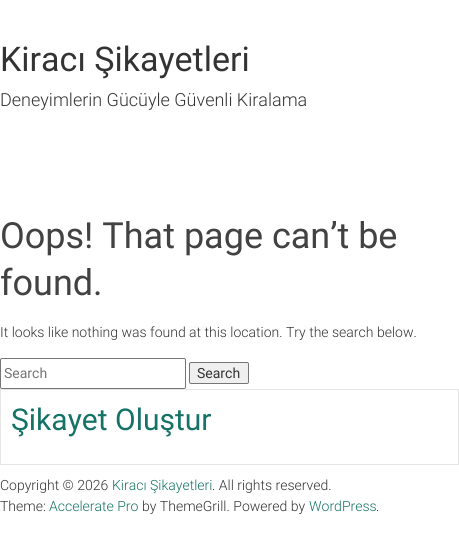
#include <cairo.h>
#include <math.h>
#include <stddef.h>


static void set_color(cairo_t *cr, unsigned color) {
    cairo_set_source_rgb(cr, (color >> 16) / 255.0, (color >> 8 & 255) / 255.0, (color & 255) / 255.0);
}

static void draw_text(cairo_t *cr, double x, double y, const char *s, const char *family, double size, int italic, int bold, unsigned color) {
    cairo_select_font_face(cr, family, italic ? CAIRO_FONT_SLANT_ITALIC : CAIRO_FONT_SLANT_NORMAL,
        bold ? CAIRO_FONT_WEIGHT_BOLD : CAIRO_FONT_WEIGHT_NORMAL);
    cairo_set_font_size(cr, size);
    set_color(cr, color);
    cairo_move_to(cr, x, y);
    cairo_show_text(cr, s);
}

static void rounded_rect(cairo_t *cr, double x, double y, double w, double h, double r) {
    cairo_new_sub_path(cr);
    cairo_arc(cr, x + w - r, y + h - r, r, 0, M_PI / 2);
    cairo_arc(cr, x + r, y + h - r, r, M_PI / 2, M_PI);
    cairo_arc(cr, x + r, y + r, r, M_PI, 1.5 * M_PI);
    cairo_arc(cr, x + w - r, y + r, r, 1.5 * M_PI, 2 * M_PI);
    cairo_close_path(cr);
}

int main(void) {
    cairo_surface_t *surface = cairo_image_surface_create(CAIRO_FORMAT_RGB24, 459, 558);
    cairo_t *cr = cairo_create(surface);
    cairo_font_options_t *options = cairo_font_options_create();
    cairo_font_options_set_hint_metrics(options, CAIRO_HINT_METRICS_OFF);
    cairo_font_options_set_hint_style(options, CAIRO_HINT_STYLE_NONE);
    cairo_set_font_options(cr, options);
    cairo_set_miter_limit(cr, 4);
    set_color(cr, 0xFFFFFF);
    cairo_paint(cr);
    draw_text(cr, 0, 71, "Kiracı Şikayetleri", "Roboto", 34, 0, 0, 0x333333);
    draw_text(cr, 0, 106, "Deneyimlerin Gücüyle Güvenli Kiralama", "Roboto Light", 18, 0, 0, 0x333333);
    draw_text(cr, 0, 248, "Oops! That page can’t be", "Roboto", 36, 0, 0, 0x424242);
    draw_text(cr, 0, 295, "found.", "Roboto", 36, 0, 0, 0x424242);
    draw_text(cr, 0, 337, "It looks like nothing was found at this location. Try the search below.", "Roboto Light", 14, 0, 0, 0x333333);
    rounded_rect(cr, 0.5, 358.5, 185, 30, 1.5);
    set_color(cr, 0x767676);
    cairo_set_line_width(cr, 1);
    cairo_stroke(cr);
    draw_text(cr, 4, 378, "Search", "Roboto", 14, 0, 0, 0x757575);
    set_color(cr, 0xEFEFEF);
    rounded_rect(cr, 189.5, 362.5, 59, 21, 1.5);
    cairo_fill_preserve(cr);
    set_color(cr, 0x767676);
    cairo_stroke(cr);
    draw_text(cr, 197, 378, "Search", "Roboto", 14, 0, 0, 0x333333);
    cairo_rectangle(cr, 0.5, 389.5, 458, 75);
    set_color(cr, 0xE6E6E6);
    cairo_stroke(cr);
    draw_text(cr, 11, 430, "Şikayet Oluştur", "Roboto", 30, 0, 0, 0x157266);
    draw_text(cr, 0, 490, "Copyright © 2026", "Roboto Light", 14, 0, 0, 0x333333);
    draw_text(cr, 112, 490, "Kiracı Şikayetleri", "Roboto Light", 14, 0, 0, 0x157266);
    draw_text(cr, 212, 490, ". All rights reserved.", "Roboto Light", 14, 0, 0, 0x333333);
    draw_text(cr, 0, 511, "Theme:", "Roboto Light", 14, 0, 0, 0x333333);
    draw_text(cr, 49, 511, "Accelerate Pro", "Roboto Light", 14, 0, 0, 0x157266);
    draw_text(cr, 142, 511, "by ThemeGrill. Powered by", "Roboto Light", 14, 0, 0, 0x333333);
    draw_text(cr, 309, 511, "WordPress", "Roboto Light", 14, 0, 0, 0x157266);
    draw_text(cr, 376, 511, ".", "Roboto Light", 14, 0, 0, 0x333333);
    cairo_surface_write_to_png(surface, "output.png");
    cairo_font_options_destroy(options);
    cairo_destroy(cr);
    cairo_surface_destroy(surface);
    return 0;
}
